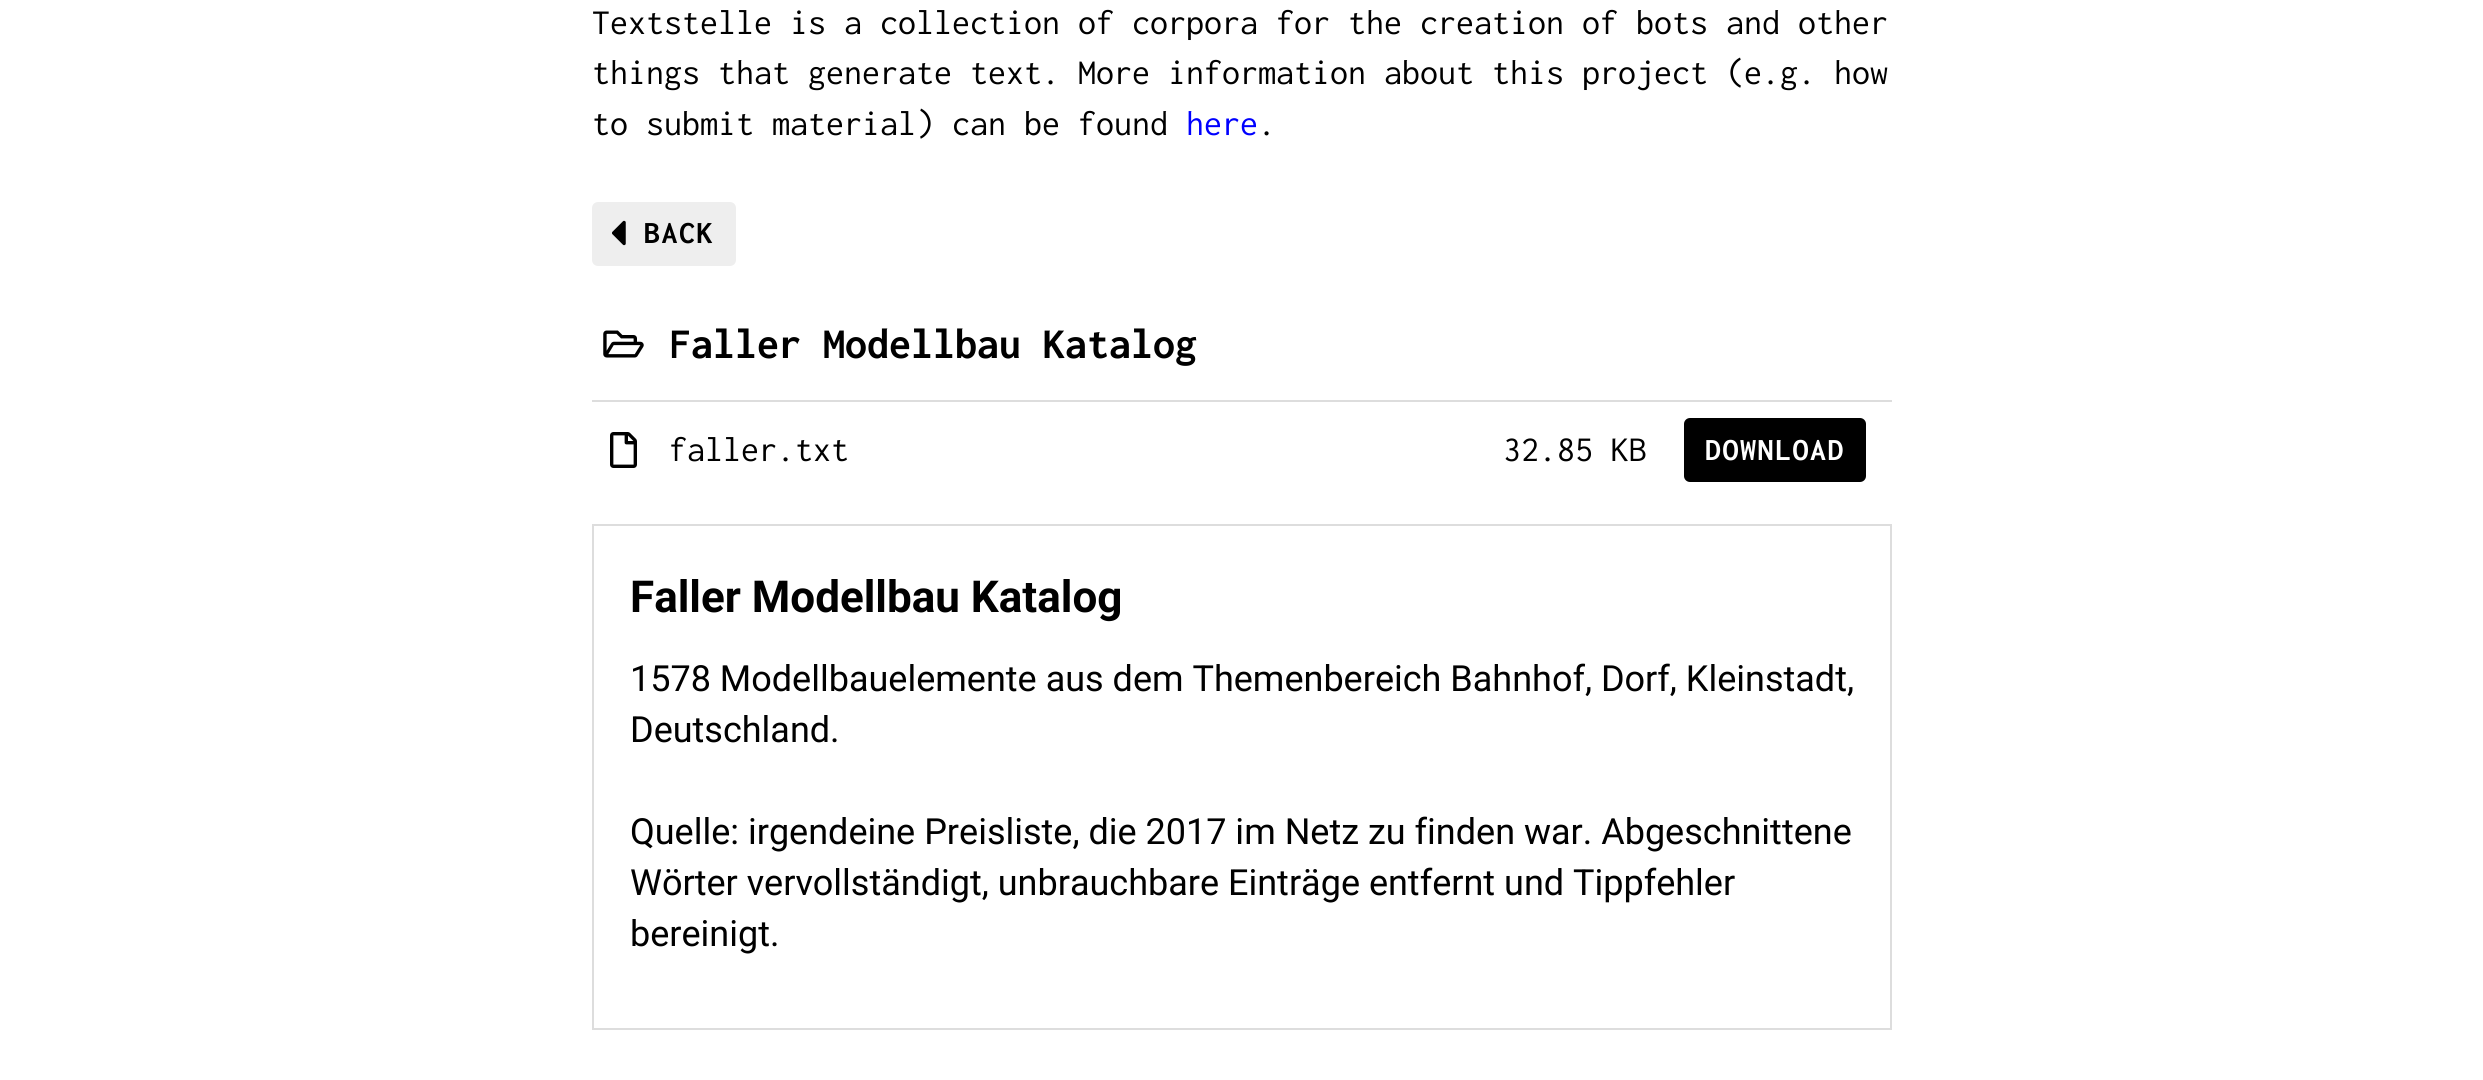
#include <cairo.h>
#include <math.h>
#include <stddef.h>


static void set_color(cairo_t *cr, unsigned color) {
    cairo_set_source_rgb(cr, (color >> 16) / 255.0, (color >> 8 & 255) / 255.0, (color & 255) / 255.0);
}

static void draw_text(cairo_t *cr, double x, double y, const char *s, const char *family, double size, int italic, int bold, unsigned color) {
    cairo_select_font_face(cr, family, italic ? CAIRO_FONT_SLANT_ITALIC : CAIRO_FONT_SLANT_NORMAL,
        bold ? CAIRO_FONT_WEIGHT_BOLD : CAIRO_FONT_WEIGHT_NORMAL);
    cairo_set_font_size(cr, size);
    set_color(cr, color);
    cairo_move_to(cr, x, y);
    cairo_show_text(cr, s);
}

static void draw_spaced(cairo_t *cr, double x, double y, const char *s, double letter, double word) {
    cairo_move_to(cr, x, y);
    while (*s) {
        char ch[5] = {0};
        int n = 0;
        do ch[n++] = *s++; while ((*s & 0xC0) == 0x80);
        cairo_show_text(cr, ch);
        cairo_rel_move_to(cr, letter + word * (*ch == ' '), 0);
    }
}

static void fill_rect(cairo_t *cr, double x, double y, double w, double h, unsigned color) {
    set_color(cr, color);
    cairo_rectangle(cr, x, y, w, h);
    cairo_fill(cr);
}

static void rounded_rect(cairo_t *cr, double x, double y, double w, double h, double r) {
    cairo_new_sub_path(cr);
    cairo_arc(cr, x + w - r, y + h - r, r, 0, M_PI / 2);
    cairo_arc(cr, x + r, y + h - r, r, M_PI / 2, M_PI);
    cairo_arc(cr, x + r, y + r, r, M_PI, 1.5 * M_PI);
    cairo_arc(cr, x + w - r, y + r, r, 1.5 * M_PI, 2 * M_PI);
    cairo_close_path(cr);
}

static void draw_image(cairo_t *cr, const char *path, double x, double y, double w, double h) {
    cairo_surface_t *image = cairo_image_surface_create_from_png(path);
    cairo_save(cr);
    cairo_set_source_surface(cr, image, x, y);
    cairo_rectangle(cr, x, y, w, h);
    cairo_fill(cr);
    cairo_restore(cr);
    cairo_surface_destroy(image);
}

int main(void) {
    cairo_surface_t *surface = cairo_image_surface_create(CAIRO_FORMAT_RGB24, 2483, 1080);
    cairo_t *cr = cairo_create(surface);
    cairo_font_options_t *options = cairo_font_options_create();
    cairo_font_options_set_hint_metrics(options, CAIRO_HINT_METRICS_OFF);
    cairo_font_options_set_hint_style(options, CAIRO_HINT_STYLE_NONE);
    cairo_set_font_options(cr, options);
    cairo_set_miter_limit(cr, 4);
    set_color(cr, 0xFFFFFF);
    cairo_paint(cr);
    draw_text(cr, 592, 34, "Textstelle is a collection of corpora for the creation of bots and other", "Inconsolata", 36, 0, 0, 0x000000);
    draw_text(cr, 592, 84, "things that generate text. More information about this project (e.g. how", "Inconsolata", 36, 0, 0, 0x000000);
    draw_text(cr, 592, 135, "to submit material) can be found", "Inconsolata", 36, 0, 0, 0x000000);
    draw_text(cr, 1186, 135, "here", "Inconsolata", 36, 0, 0, 0x0000FF);
    draw_text(cr, 1258, 135, ".", "Inconsolata", 36, 0, 0, 0x000000);
    set_color(cr, 0xEEEEEE);
    rounded_rect(cr, 592, 202, 144, 64, 6);
    cairo_fill(cr);
    draw_image(cr, "assets/img1.png", 612, 220, 14, 26);
    cairo_select_font_face(cr, "Inconsolata", CAIRO_FONT_SLANT_NORMAL, CAIRO_FONT_WEIGHT_BOLD);
    cairo_set_font_size(cr, 32);
    set_color(cr, 0x000000);
    draw_spaced(cr, 644, 243, "BACK", 1.5, 0);
    fill_rect(cr, 592, 400, 1300, 2, 0xDDDDDD);
    draw_image(cr, "assets/img2.png", 603, 330, 41, 28);
    draw_text(cr, 669, 358, "Faller Modellbau Katalog", "Inconsolata", 44, 0, 1, 0x000000);
    draw_image(cr, "assets/img3.png", 610, 432, 27, 36);
    draw_text(cr, 669, 461, "faller.txt", "Inconsolata", 36, 0, 0, 0x000000);
    draw_text(cr, 1503, 461, "32.85 KB", "Inconsolata", 36, 0, 0, 0x000000);
    rounded_rect(cr, 1684, 418, 182, 64, 6);
    cairo_fill(cr);
    cairo_select_font_face(cr, "Inconsolata", CAIRO_FONT_SLANT_NORMAL, CAIRO_FONT_WEIGHT_BOLD);
    cairo_set_font_size(cr, 32);
    set_color(cr, 0xFFFFFF);
    draw_spaced(cr, 1705, 460, "DOWNLOAD", 1.5, 0);
    cairo_rectangle(cr, 593, 525, 1298, 504);
    set_color(cr, 0xDDDDDD);
    cairo_stroke(cr);
    draw_text(cr, 630, 612, "Faller Modellbau Katalog", "Roboto", 44, 0, 1, 0x000000);
    draw_text(cr, 630, 691, "1578 Modellbauelemente aus dem Themenbereich Bahnhof, Dorf, Kleinstadt,", "Roboto", 36, 0, 0, 0x000000);
    draw_text(cr, 630, 742, "Deutschland.", "Roboto", 36, 0, 0, 0x000000);
    draw_text(cr, 630, 844, "Quelle: irgendeine Preisliste, die 2017 im Netz zu finden war. Abgeschnittene", "Roboto", 36, 0, 0, 0x000000);
    draw_text(cr, 630, 895, "Wörter vervollständigt, unbrauchbare Einträge entfernt und Tippfehler", "Roboto", 36, 0, 0, 0x000000);
    draw_text(cr, 630, 946, "bereinigt.", "Roboto", 36, 0, 0, 0x000000);
    cairo_surface_write_to_png(surface, "output.png");
    cairo_font_options_destroy(options);
    cairo_destroy(cr);
    cairo_surface_destroy(surface);
    return 0;
}
